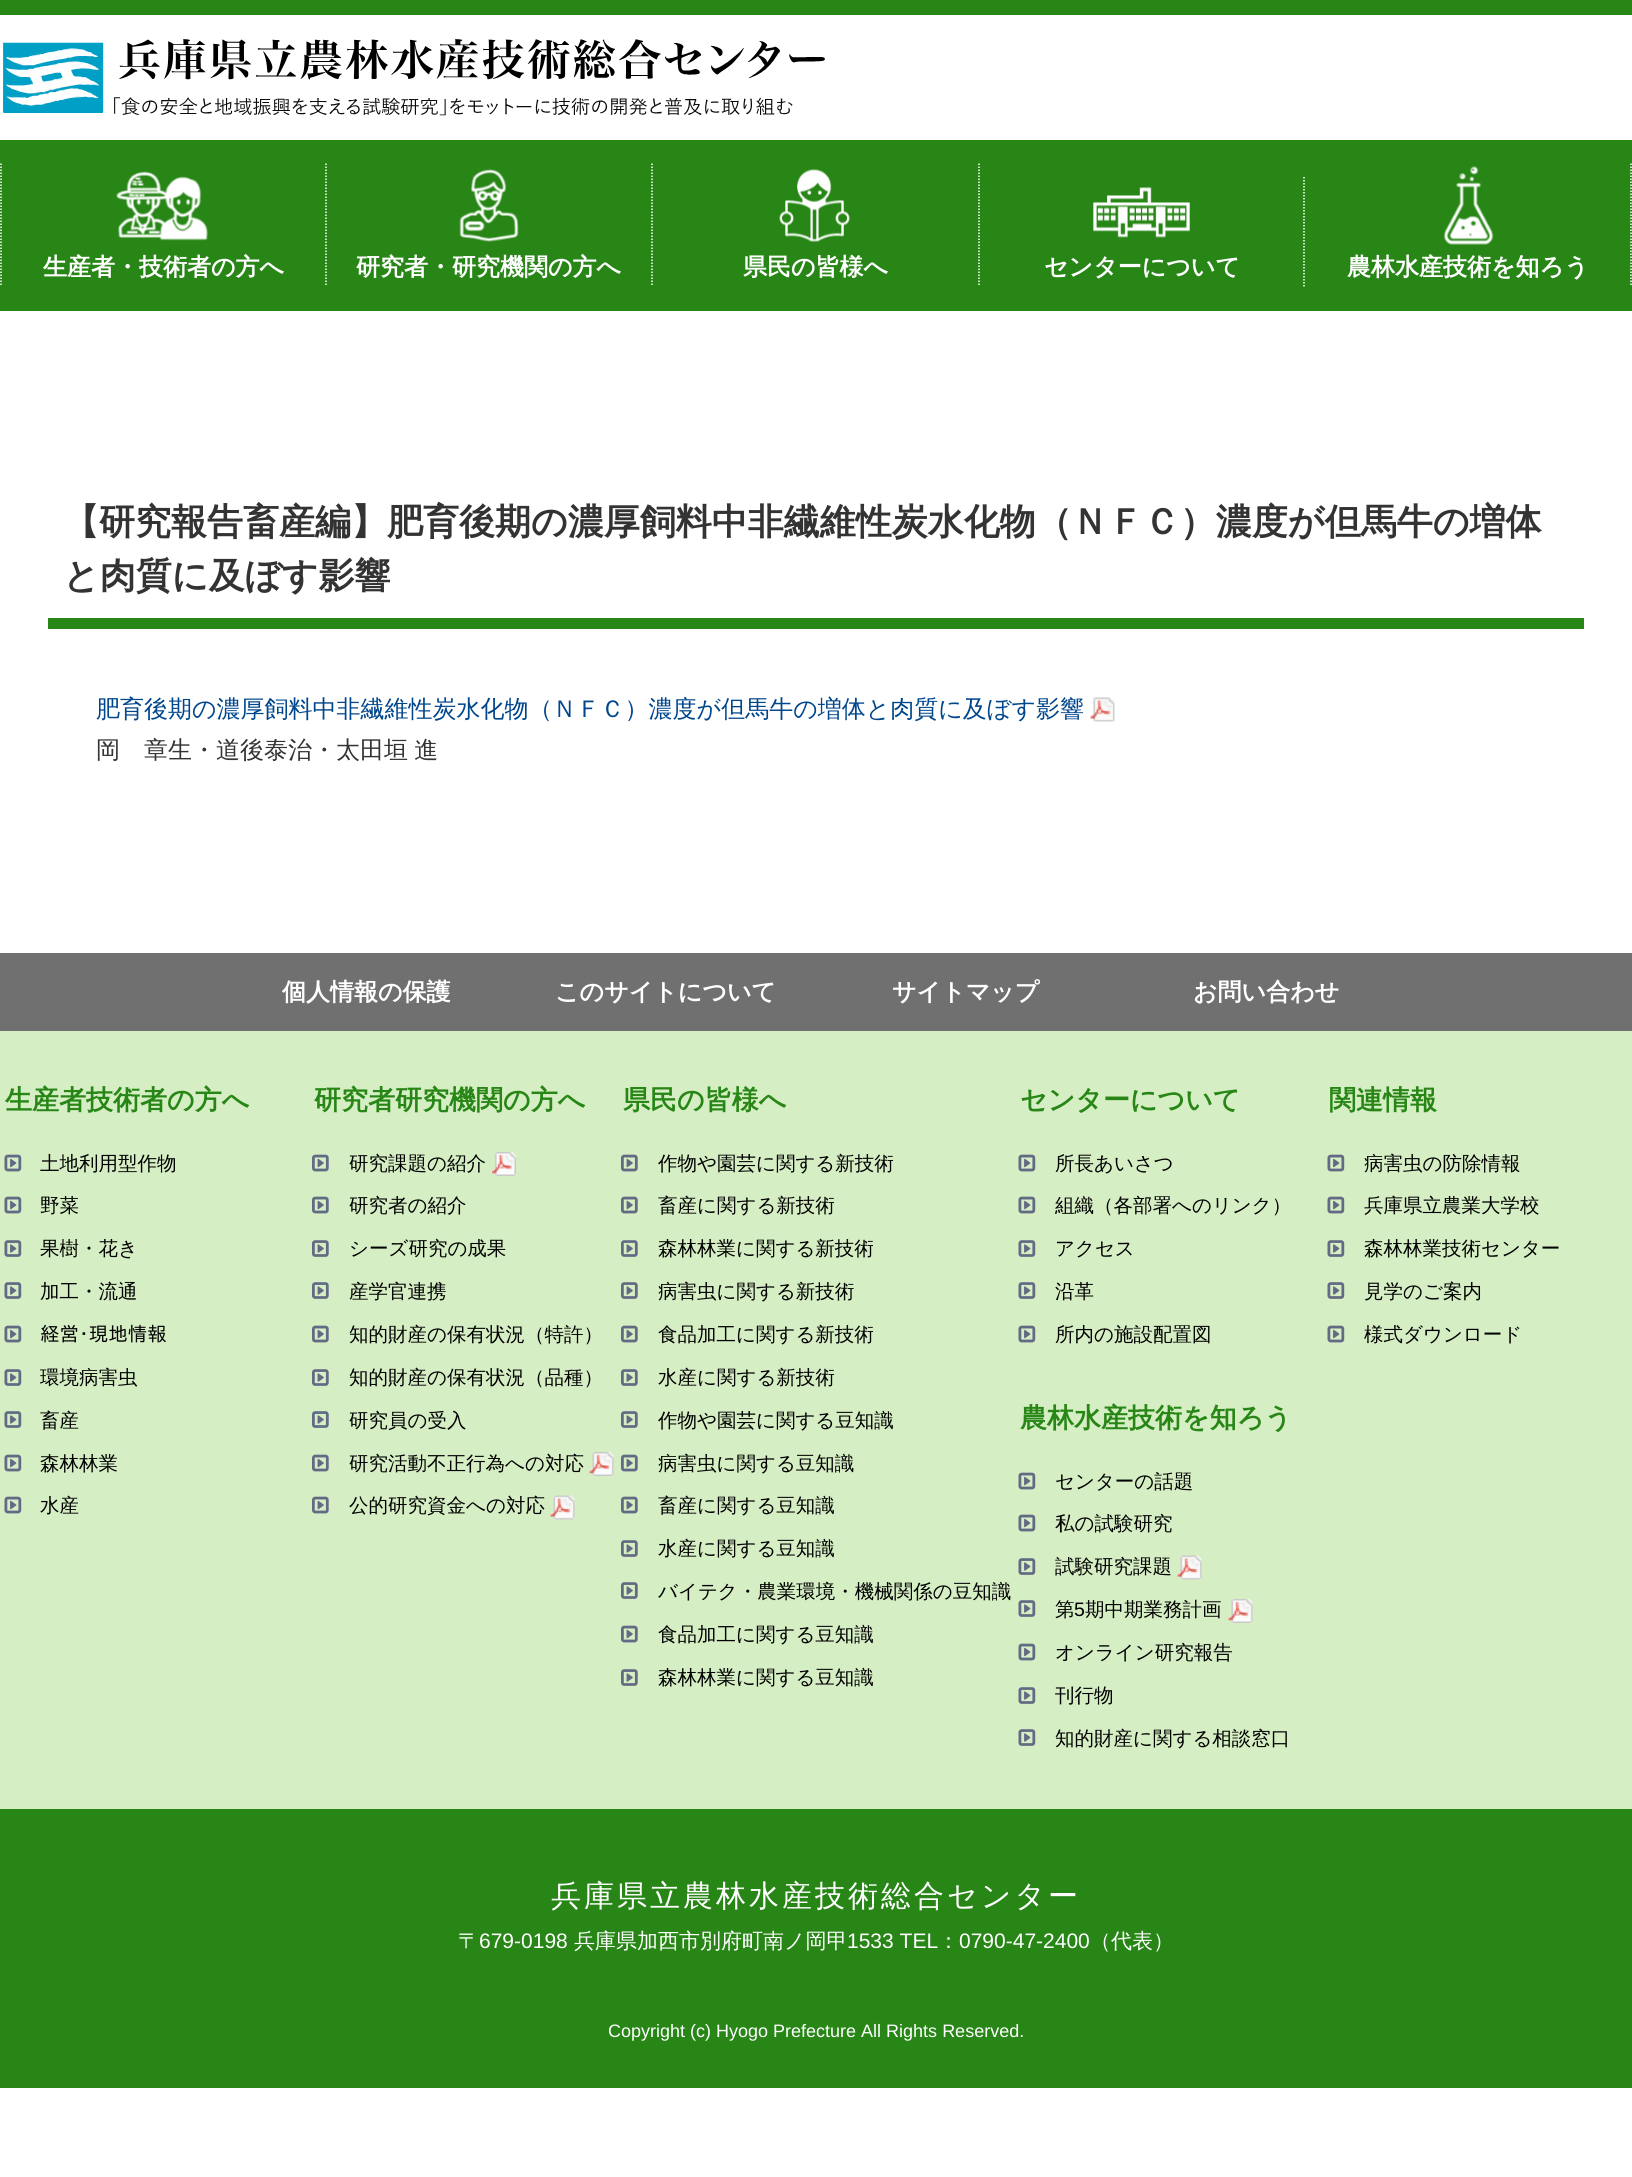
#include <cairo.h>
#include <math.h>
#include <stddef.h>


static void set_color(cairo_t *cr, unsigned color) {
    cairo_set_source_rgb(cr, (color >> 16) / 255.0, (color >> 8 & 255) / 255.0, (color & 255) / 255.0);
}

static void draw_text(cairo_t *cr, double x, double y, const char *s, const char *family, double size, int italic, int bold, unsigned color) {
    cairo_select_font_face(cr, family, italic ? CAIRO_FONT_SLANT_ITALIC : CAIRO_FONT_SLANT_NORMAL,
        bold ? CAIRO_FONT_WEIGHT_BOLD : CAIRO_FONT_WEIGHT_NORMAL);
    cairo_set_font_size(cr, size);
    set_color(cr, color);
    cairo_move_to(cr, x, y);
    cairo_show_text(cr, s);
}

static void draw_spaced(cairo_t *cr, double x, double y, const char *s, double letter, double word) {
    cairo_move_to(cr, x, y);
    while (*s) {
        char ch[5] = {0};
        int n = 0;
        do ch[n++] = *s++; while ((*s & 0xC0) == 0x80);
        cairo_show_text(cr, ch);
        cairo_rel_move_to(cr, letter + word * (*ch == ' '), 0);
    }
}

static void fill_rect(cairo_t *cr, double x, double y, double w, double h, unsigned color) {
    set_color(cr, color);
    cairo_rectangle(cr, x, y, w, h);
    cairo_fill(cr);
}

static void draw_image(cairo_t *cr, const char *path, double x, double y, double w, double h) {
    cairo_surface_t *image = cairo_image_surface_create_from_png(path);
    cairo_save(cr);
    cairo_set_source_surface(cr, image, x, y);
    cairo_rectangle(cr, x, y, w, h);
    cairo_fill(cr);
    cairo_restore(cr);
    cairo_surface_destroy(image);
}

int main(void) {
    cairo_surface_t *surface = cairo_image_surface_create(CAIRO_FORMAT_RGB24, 1632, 2177);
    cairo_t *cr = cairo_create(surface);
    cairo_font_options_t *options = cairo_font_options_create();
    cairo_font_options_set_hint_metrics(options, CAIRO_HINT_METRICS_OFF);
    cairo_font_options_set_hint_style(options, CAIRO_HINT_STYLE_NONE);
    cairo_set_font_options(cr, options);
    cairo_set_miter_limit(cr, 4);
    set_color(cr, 0xFFFFFF);
    cairo_paint(cr);
    fill_rect(cr, 0, 0, 1632, 15, 0x278616);
    draw_image(cr, "assets/img1.png", 3, 39, 822, 77);
    fill_rect(cr, 0, 140, 1632, 171, 0x278616);
    cairo_new_path(cr);
    cairo_move_to(cr, 326, 163.5);
    cairo_line_to(cr, 326, 286.5);
    set_color(cr, 0xFFFFFF);
    cairo_set_line_width(cr, 1.5);
    cairo_set_dash(cr, (double[]){1.5, 1.5}, 2, 0);
    cairo_stroke(cr);
    cairo_new_path(cr);
    cairo_move_to(cr, 1, 163.5);
    cairo_line_to(cr, 1, 286.5);
    cairo_stroke(cr);
    draw_image(cr, "assets/img2.png", 116, 171, 92, 70);
    draw_text(cr, 43, 275, "生産者・技術者の方へ", "WenQuanYi Zen Hei", 24, 0, 1, 0xFFFFFF);
    cairo_new_path(cr);
    cairo_move_to(cr, 652, 163.5);
    cairo_line_to(cr, 652, 286.5);
    cairo_stroke(cr);
    draw_image(cr, "assets/img3.png", 459, 169, 60, 73);
    draw_text(cr, 356, 275, "研究者・研究機関の方へ", "WenQuanYi Zen Hei", 24, 0, 1, 0xFFFFFF);
    cairo_new_path(cr);
    cairo_move_to(cr, 979, 163.5);
    cairo_line_to(cr, 979, 286.5);
    cairo_stroke(cr);
    draw_image(cr, "assets/img4.png", 779, 169, 71, 73);
    draw_text(cr, 743, 275, "県民の皆様へ", "WenQuanYi Zen Hei", 24, 0, 1, 0xFFFFFF);
    cairo_new_path(cr);
    cairo_move_to(cr, 1304, 177);
    cairo_line_to(cr, 1304, 286.5);
    cairo_stroke(cr);
    draw_image(cr, "assets/img5.png", 1093, 187, 97, 51);
    draw_text(cr, 1044, 275, "センターについて", "WenQuanYi Zen Hei", 24, 0, 1, 0xFFFFFF);
    cairo_new_path(cr);
    cairo_move_to(cr, 1631, 163.5);
    cairo_line_to(cr, 1631, 286.5);
    cairo_stroke(cr);
    draw_image(cr, "assets/img6.png", 1444, 166, 50, 79);
    draw_text(cr, 1347, 275, "農林水産技術を知ろう", "WenQuanYi Zen Hei", 24, 0, 1, 0xFFFFFF);
    fill_rect(cr, 48, 618, 1536, 11, 0x278616);
    draw_text(cr, 63, 534, "【研究報告畜産編】肥育後期の濃厚飼料中非繊維性炭水化物（ＮＦＣ）濃度が但馬牛の増体", "WenQuanYi Zen Hei", 36, 0, 1, 0x333333);
    draw_text(cr, 63, 588, "と肉質に及ぼす影響", "WenQuanYi Zen Hei", 36, 0, 1, 0x333333);
    draw_image(cr, "assets/img7.png", 1090, 697, 25, 25);
    draw_text(cr, 96, 717, "肥育後期の濃厚飼料中非繊維性炭水化物（ＮＦＣ）濃度が但馬牛の増体と肉質に及ぼす影響", "WenQuanYi Zen Hei Medium", 24, 0, 0, 0x00468C);
    set_color(cr, 0x333333);
    draw_spaced(cr, 96, 758, "岡　章生・道後泰治・太田垣 進", 0, -1);
    fill_rect(cr, 0, 953, 1632, 78, 0x707070);
    draw_text(cr, 282, 1000, "個⼈情報の保護", "WenQuanYi Zen Hei", 24, 0, 1, 0xFFFFFF);
    draw_text(cr, 555, 1000, "このサイトについて", "WenQuanYi Zen Hei", 24, 0, 1, 0xFFFFFF);
    draw_text(cr, 892, 1000, "サイトマップ", "WenQuanYi Zen Hei", 24, 0, 1, 0xFFFFFF);
    draw_text(cr, 1193, 1000, "お問い合わせ", "WenQuanYi Zen Hei", 24, 0, 1, 0xFFFFFF);
    fill_rect(cr, 0, 1031, 1632, 778, 0xD6EEC4);
    draw_text(cr, 5, 1109, "⽣産者技術者の⽅へ", "WenQuanYi Zen Hei", 27, 0, 1, 0x278616);
    draw_image(cr, "assets/img8.png", 4, 1154, 18, 18);
    draw_text(cr, 40, 1170, "⼟地利⽤型作物", "WenQuanYi Zen Hei Medium", 19.5, 0, 0, 0x000000);
    draw_image(cr, "assets/img8.png", 4, 1196, 18, 18);
    draw_text(cr, 40, 1212, "野菜", "WenQuanYi Zen Hei Medium", 19.5, 0, 0, 0x000000);
    draw_image(cr, "assets/img9.png", 4, 1240, 18, 17);
    draw_text(cr, 40, 1255, "果樹・花き", "WenQuanYi Zen Hei Medium", 19.5, 0, 0, 0x000000);
    draw_image(cr, "assets/img9.png", 4, 1282, 18, 17);
    draw_text(cr, 40, 1298, "加⼯・流通", "WenQuanYi Zen Hei Medium", 19.5, 0, 0, 0x000000);
    draw_image(cr, "assets/img8.png", 4, 1325, 18, 18);
    draw_text(cr, 40, 1341, "経営･現地情報", "IPAPGothic", 19.5, 0, 0, 0x000000);
    draw_image(cr, "assets/img9.png", 4, 1369, 18, 17);
    draw_text(cr, 40, 1384, "環境病害⾍", "WenQuanYi Zen Hei Medium", 19.5, 0, 0, 0x000000);
    draw_image(cr, "assets/img9.png", 4, 1411, 18, 17);
    draw_text(cr, 40, 1427, "畜産", "WenQuanYi Zen Hei Medium", 19.5, 0, 0, 0x000000);
    draw_image(cr, "assets/img8.png", 4, 1454, 18, 18);
    draw_text(cr, 40, 1470, "森林林業", "WenQuanYi Zen Hei Medium", 19.5, 0, 0, 0x000000);
    draw_image(cr, "assets/img8.png", 4, 1496, 18, 18);
    draw_text(cr, 40, 1512, "⽔産", "WenQuanYi Zen Hei Medium", 19.5, 0, 0, 0x000000);
    draw_text(cr, 314, 1109, "研究者研究機関の⽅へ", "WenQuanYi Zen Hei", 27, 0, 1, 0x278616);
    draw_image(cr, "assets/img10.png", 312, 1154, 17, 18);
    draw_image(cr, "assets/img11.png", 492, 1152, 24, 24);
    draw_text(cr, 349, 1170, "研究課題の紹介", "WenQuanYi Zen Hei Medium", 19.5, 0, 0, 0x000000);
    draw_image(cr, "assets/img10.png", 312, 1196, 17, 18);
    draw_text(cr, 349, 1212, "研究者の紹介", "WenQuanYi Zen Hei Medium", 19.5, 0, 0, 0x000000);
    draw_image(cr, "assets/img12.png", 312, 1240, 17, 17);
    draw_text(cr, 349, 1255, "シーズ研究の成果", "WenQuanYi Zen Hei Medium", 19.5, 0, 0, 0x000000);
    draw_image(cr, "assets/img12.png", 312, 1282, 17, 17);
    draw_text(cr, 349, 1298, "産学官連携", "WenQuanYi Zen Hei Medium", 19.5, 0, 0, 0x000000);
    draw_image(cr, "assets/img10.png", 312, 1325, 17, 18);
    draw_text(cr, 349, 1341, "知的財産の保有状況（特許）", "WenQuanYi Zen Hei Medium", 19.5, 0, 0, 0x000000);
    draw_image(cr, "assets/img12.png", 312, 1369, 17, 17);
    draw_text(cr, 349, 1384, "知的財産の保有状況（品種）", "WenQuanYi Zen Hei Medium", 19.5, 0, 0, 0x000000);
    draw_image(cr, "assets/img12.png", 312, 1411, 17, 17);
    draw_text(cr, 349, 1427, "研究員の受⼊", "WenQuanYi Zen Hei Medium", 19.5, 0, 0, 0x000000);
    draw_image(cr, "assets/img10.png", 312, 1454, 17, 18);
    draw_image(cr, "assets/img13.png", 589, 1452, 25, 24);
    draw_text(cr, 349, 1470, "研究活動不正⾏為への対応", "WenQuanYi Zen Hei Medium", 19.5, 0, 0, 0x000000);
    draw_image(cr, "assets/img10.png", 312, 1496, 17, 18);
    draw_image(cr, "assets/img14.png", 550, 1495, 25, 25);
    draw_text(cr, 349, 1512, "公的研究資金への対応", "WenQuanYi Zen Hei Medium", 19.5, 0, 0, 0x000000);
    draw_text(cr, 623, 1109, "県⺠の皆様へ", "WenQuanYi Zen Hei", 27, 0, 1, 0x278616);
    draw_image(cr, "assets/img10.png", 621, 1154, 17, 18);
    draw_text(cr, 658, 1170, "作物や園芸に関する新技術", "WenQuanYi Zen Hei Medium", 19.5, 0, 0, 0x000000);
    draw_image(cr, "assets/img10.png", 621, 1196, 17, 18);
    draw_text(cr, 658, 1212, "畜産に関する新技術", "WenQuanYi Zen Hei Medium", 19.5, 0, 0, 0x000000);
    draw_image(cr, "assets/img12.png", 621, 1240, 17, 17);
    draw_text(cr, 658, 1255, "森林林業に関する新技術", "WenQuanYi Zen Hei Medium", 19.5, 0, 0, 0x000000);
    draw_image(cr, "assets/img12.png", 621, 1282, 17, 17);
    draw_text(cr, 658, 1298, "病害⾍に関する新技術", "WenQuanYi Zen Hei Medium", 19.5, 0, 0, 0x000000);
    draw_image(cr, "assets/img10.png", 621, 1325, 17, 18);
    draw_text(cr, 658, 1341, "⾷品加⼯に関する新技術", "WenQuanYi Zen Hei Medium", 19.5, 0, 0, 0x000000);
    draw_image(cr, "assets/img12.png", 621, 1369, 17, 17);
    draw_text(cr, 658, 1384, "⽔産に関する新技術", "WenQuanYi Zen Hei Medium", 19.5, 0, 0, 0x000000);
    draw_image(cr, "assets/img12.png", 621, 1411, 17, 17);
    draw_text(cr, 658, 1427, "作物や園芸に関する⾖知識", "WenQuanYi Zen Hei Medium", 19.5, 0, 0, 0x000000);
    draw_image(cr, "assets/img10.png", 621, 1454, 17, 18);
    draw_text(cr, 658, 1470, "病害⾍に関する⾖知識", "WenQuanYi Zen Hei Medium", 19.5, 0, 0, 0x000000);
    draw_image(cr, "assets/img10.png", 621, 1496, 17, 18);
    draw_text(cr, 658, 1512, "畜産に関する⾖知識", "WenQuanYi Zen Hei Medium", 19.5, 0, 0, 0x000000);
    draw_image(cr, "assets/img12.png", 621, 1540, 17, 17);
    draw_text(cr, 658, 1555, "⽔産に関する⾖知識", "WenQuanYi Zen Hei Medium", 19.5, 0, 0, 0x000000);
    draw_image(cr, "assets/img12.png", 621, 1582, 17, 17);
    draw_text(cr, 658, 1598, "バイテク・農業環境・機械関係の⾖知識", "WenQuanYi Zen Hei Medium", 19.5, 0, 0, 0x000000);
    draw_image(cr, "assets/img10.png", 621, 1625, 17, 18);
    draw_text(cr, 658, 1641, "⾷品加⼯に関する⾖知識", "WenQuanYi Zen Hei Medium", 19.5, 0, 0, 0x000000);
    draw_image(cr, "assets/img12.png", 621, 1669, 17, 17);
    draw_text(cr, 658, 1684, "森林林業に関する⾖知識", "WenQuanYi Zen Hei Medium", 19.5, 0, 0, 0x000000);
    draw_text(cr, 1020, 1109, "センターについて", "WenQuanYi Zen Hei", 27, 0, 1, 0x278616);
    draw_image(cr, "assets/img8.png", 1018, 1154, 18, 18);
    draw_text(cr, 1055, 1170, "所⻑あいさつ", "WenQuanYi Zen Hei Medium", 19.5, 0, 0, 0x000000);
    draw_image(cr, "assets/img8.png", 1018, 1196, 18, 18);
    draw_text(cr, 1055, 1212, "組織（各部署へのリンク）", "WenQuanYi Zen Hei Medium", 19.5, 0, 0, 0x000000);
    draw_image(cr, "assets/img9.png", 1018, 1240, 18, 17);
    draw_text(cr, 1055, 1255, "アクセス", "WenQuanYi Zen Hei Medium", 19.5, 0, 0, 0x000000);
    draw_image(cr, "assets/img9.png", 1018, 1282, 18, 17);
    draw_text(cr, 1055, 1298, "沿⾰", "WenQuanYi Zen Hei Medium", 19.5, 0, 0, 0x000000);
    draw_image(cr, "assets/img8.png", 1018, 1325, 18, 18);
    draw_text(cr, 1055, 1341, "所内の施設配置図", "WenQuanYi Zen Hei Medium", 19.5, 0, 0, 0x000000);
    draw_text(cr, 1020, 1427, "農林⽔産技術を知ろう", "WenQuanYi Zen Hei", 27, 0, 1, 0x278616);
    draw_image(cr, "assets/img8.png", 1018, 1472, 18, 18);
    draw_text(cr, 1055, 1488, "センターの話題", "WenQuanYi Zen Hei Medium", 19.5, 0, 0, 0x000000);
    draw_image(cr, "assets/img8.png", 1018, 1514, 18, 18);
    draw_text(cr, 1055, 1530, "私の試験研究", "WenQuanYi Zen Hei Medium", 19.5, 0, 0, 0x000000);
    draw_image(cr, "assets/img9.png", 1018, 1558, 18, 17);
    draw_image(cr, "assets/img14.png", 1177, 1555, 25, 25);
    draw_text(cr, 1055, 1573, "試験研究課題", "WenQuanYi Zen Hei Medium", 19.5, 0, 0, 0x000000);
    draw_image(cr, "assets/img9.png", 1018, 1600, 18, 17);
    draw_image(cr, "assets/img15.png", 1228, 1599, 25, 24);
    draw_text(cr, 1055, 1616, "第", "WenQuanYi Zen Hei Medium", 19.5, 0, 0, 0x000000);
    draw_text(cr, 1074, 1616, "5", "Liberation Sans", 19.5, 0, 0, 0x000000);
    draw_text(cr, 1085, 1616, "期中期業務計画", "WenQuanYi Zen Hei Medium", 19.5, 0, 0, 0x000000);
    draw_image(cr, "assets/img8.png", 1018, 1643, 18, 18);
    draw_text(cr, 1055, 1659, "オンライン研究報告", "WenQuanYi Zen Hei Medium", 19.5, 0, 0, 0x000000);
    draw_image(cr, "assets/img9.png", 1018, 1687, 18, 17);
    draw_text(cr, 1055, 1702, "刊⾏物", "WenQuanYi Zen Hei Medium", 19.5, 0, 0, 0x000000);
    draw_image(cr, "assets/img9.png", 1018, 1729, 18, 17);
    draw_text(cr, 1055, 1745, "知的財産に関する相談窓⼝", "WenQuanYi Zen Hei Medium", 19.5, 0, 0, 0x000000);
    draw_text(cr, 1329, 1109, "関連情報", "WenQuanYi Zen Hei", 27, 0, 1, 0x278616);
    draw_image(cr, "assets/img8.png", 1327, 1154, 18, 18);
    draw_text(cr, 1364, 1170, "病害⾍の防除情報", "WenQuanYi Zen Hei Medium", 19.5, 0, 0, 0x000000);
    draw_image(cr, "assets/img8.png", 1327, 1196, 18, 18);
    draw_text(cr, 1364, 1212, "兵庫県⽴農業⼤学校", "WenQuanYi Zen Hei Medium", 19.5, 0, 0, 0x000000);
    draw_image(cr, "assets/img9.png", 1327, 1240, 18, 17);
    draw_text(cr, 1364, 1255, "森林林業技術センター", "WenQuanYi Zen Hei Medium", 19.5, 0, 0, 0x000000);
    draw_image(cr, "assets/img9.png", 1327, 1282, 18, 17);
    draw_text(cr, 1364, 1298, "⾒学のご案内", "WenQuanYi Zen Hei Medium", 19.5, 0, 0, 0x000000);
    draw_image(cr, "assets/img8.png", 1327, 1325, 18, 18);
    draw_text(cr, 1364, 1341, "様式ダウンロード", "WenQuanYi Zen Hei Medium", 19.5, 0, 0, 0x000000);
    fill_rect(cr, 0, 1809, 1632, 279, 0x278616);
    cairo_set_font_size(cr, 30);
    set_color(cr, 0xFFFFFF);
    draw_spaced(cr, 551, 1906, "兵庫県⽴農林⽔産技術総合センター", 3, 0);
    draw_text(cr, 458, 1948, "〒", "WenQuanYi Zen Hei Medium", 21, 0, 0, 0xFFFFFF);
    draw_text(cr, 479, 1948, "679-0198", "Liberation Sans", 21, 0, 0, 0xFFFFFF);
    draw_text(cr, 574, 1948, "兵庫県加⻄市別府町南ノ岡甲", "WenQuanYi Zen Hei Medium", 21, 0, 0, 0xFFFFFF);
    draw_text(cr, 847, 1948, "1533 TEL", "Liberation Sans", 21, 0, 0, 0xFFFFFF);
    draw_text(cr, 938, 1948, "：", "WenQuanYi Zen Hei Medium", 21, 0, 0, 0xFFFFFF);
    draw_text(cr, 959, 1948, "0790-47-2400", "Liberation Sans", 21, 0, 0, 0xFFFFFF);
    draw_text(cr, 1090, 1948, "（代表）", "WenQuanYi Zen Hei Medium", 21, 0, 0, 0xFFFFFF);
    draw_text(cr, 608, 2037, "Copyright (c) Hyogo Prefecture All Rights Reserved.", "Liberation Sans", 18, 0, 0, 0xFFFFFF);
    cairo_surface_write_to_png(surface, "output.png");
    cairo_font_options_destroy(options);
    cairo_destroy(cr);
    cairo_surface_destroy(surface);
    return 0;
}
